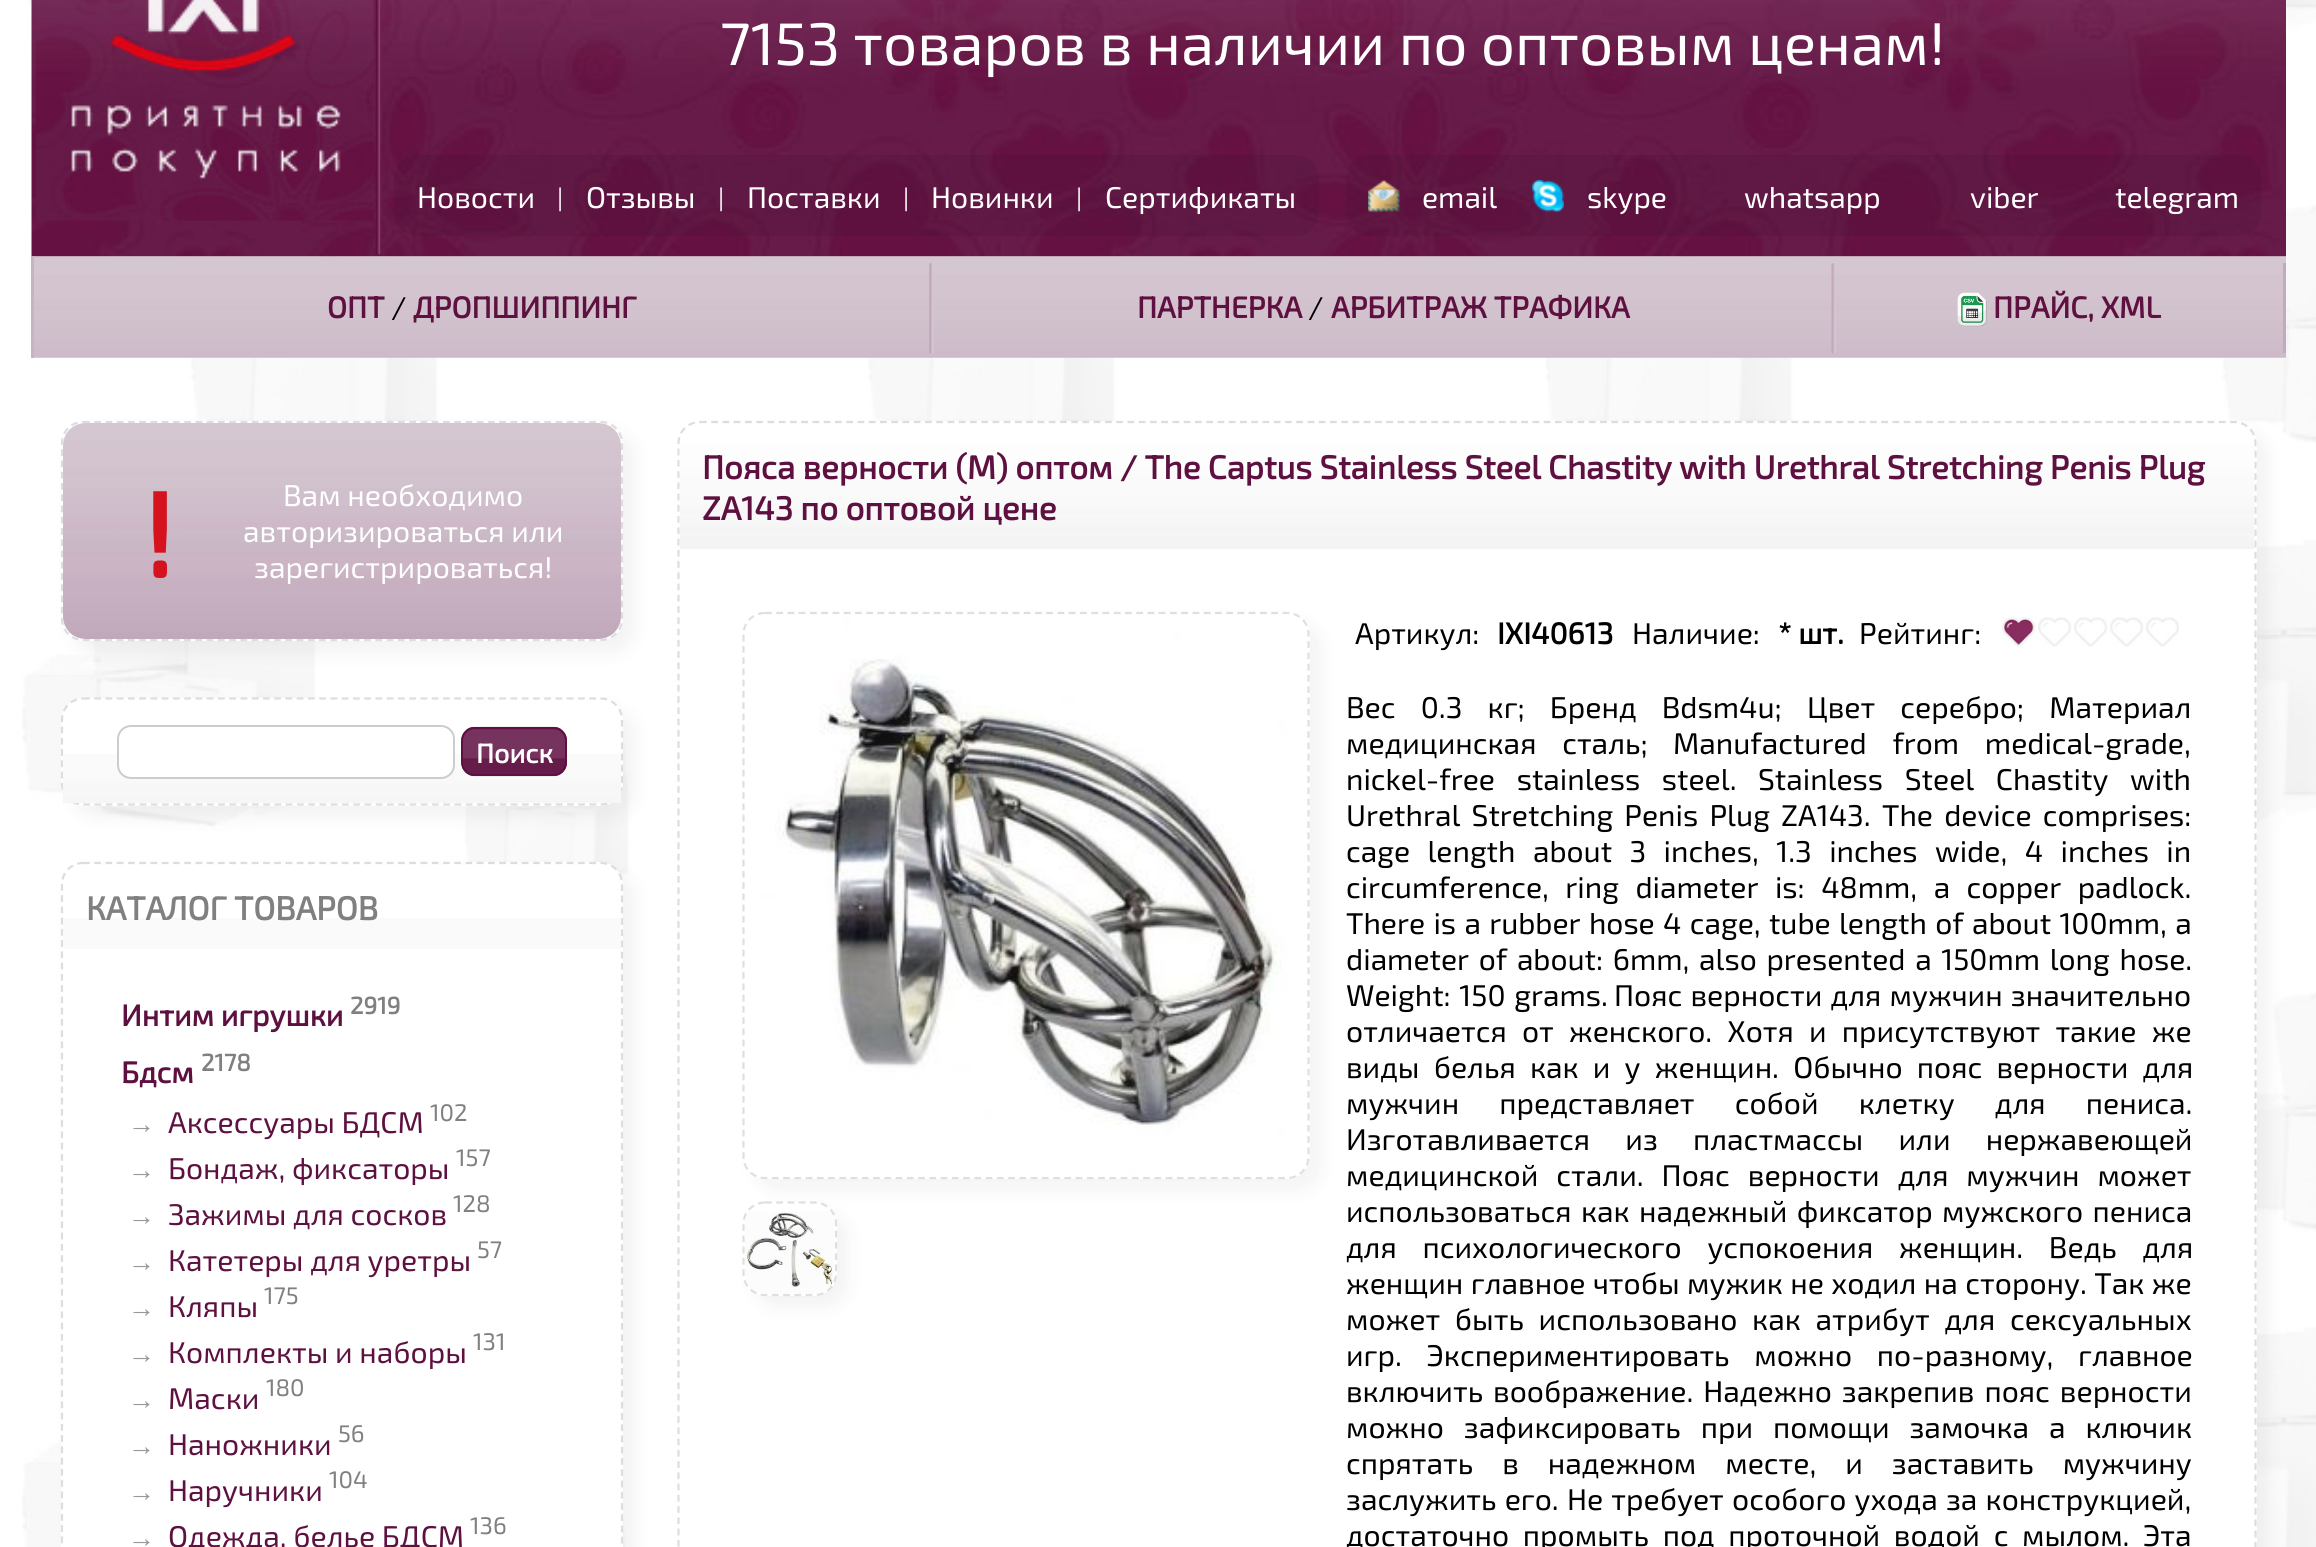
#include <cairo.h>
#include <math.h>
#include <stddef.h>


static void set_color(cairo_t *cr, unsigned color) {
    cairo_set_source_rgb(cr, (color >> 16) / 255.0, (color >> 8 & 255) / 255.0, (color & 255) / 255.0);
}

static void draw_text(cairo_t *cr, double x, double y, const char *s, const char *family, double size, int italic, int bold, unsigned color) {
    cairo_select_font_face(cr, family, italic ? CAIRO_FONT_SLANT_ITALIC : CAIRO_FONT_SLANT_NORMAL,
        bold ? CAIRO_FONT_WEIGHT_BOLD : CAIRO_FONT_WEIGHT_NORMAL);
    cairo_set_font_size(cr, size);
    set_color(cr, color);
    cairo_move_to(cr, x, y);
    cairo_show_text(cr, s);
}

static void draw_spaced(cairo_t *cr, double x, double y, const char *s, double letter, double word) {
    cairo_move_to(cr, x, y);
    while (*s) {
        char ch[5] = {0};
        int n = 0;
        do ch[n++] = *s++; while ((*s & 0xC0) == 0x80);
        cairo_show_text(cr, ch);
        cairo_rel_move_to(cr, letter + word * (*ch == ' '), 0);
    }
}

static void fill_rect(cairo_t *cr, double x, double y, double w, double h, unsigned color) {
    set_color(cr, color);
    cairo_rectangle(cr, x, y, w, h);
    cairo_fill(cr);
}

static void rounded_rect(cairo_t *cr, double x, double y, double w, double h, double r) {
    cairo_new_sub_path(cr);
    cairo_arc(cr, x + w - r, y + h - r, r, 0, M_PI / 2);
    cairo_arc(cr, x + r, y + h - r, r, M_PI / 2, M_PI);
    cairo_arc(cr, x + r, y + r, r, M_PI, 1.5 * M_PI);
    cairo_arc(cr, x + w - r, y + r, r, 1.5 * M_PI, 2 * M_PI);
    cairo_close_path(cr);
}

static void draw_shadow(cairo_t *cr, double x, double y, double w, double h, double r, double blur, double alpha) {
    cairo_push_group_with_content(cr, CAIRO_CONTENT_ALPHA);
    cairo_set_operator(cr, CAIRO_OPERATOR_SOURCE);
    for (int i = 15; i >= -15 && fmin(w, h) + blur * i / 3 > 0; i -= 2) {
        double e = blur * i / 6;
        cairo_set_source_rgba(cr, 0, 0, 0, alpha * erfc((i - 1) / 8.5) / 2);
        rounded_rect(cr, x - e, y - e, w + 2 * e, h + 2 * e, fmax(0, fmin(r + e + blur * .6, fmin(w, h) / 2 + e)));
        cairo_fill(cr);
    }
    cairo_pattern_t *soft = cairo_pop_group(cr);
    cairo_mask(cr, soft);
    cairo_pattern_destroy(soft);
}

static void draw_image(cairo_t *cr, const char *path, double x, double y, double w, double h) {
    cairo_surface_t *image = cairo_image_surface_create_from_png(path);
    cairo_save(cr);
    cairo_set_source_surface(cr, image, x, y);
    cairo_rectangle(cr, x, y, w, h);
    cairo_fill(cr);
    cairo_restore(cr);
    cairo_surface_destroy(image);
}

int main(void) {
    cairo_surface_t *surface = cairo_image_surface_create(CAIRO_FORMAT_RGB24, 2316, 1547);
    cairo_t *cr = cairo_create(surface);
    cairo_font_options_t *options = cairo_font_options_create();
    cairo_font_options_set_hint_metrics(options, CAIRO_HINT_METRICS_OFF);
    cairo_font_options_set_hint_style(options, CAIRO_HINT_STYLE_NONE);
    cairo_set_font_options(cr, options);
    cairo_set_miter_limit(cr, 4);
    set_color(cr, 0xFFFFFF);
    cairo_paint(cr);
    draw_image(cr, "assets/img1.png", 22, 0, 2294, 1547);
    draw_image(cr, "assets/img2.png", 31, 0, 2255, 257);
    draw_image(cr, "assets/img3.png", 36, 0, 338, 221);
    draw_image(cr, "assets/img4.png", 375, 0, 6, 255);
    draw_text(cr, 720, 65, "7153 товаров в наличии по оптовым ценам!", "Exo 2", 60, 0, 0, 0xFFFFFF);
    cairo_set_source_rgba(cr, 0, 0, 0, 0.07);
    rounded_rect(cr, 394, 155, 925, 81, 23);
    cairo_fill(cr);
    draw_text(cr, 417, 208, "Новости", "Exo 2", 30, 0, 0, 0xFFFFFF);
    draw_text(cr, 557, 207, "|", "Exo 2", 25, 0, 0, 0xFFFFFF);
    draw_text(cr, 586, 208, "Отзывы", "Exo 2", 30, 0, 0, 0xFFFFFF);
    draw_text(cr, 718, 207, "|", "Exo 2", 25, 0, 0, 0xFFFFFF);
    draw_text(cr, 747, 208, "Поставки", "Exo 2", 30, 0, 0, 0xFFFFFF);
    draw_text(cr, 903, 207, "|", "Exo 2", 25, 0, 0, 0xFFFFFF);
    draw_text(cr, 931, 208, "Новинки", "Exo 2", 30, 0, 0, 0xFFFFFF);
    draw_text(cr, 1076, 207, "|", "Exo 2", 25, 0, 0, 0xFFFFFF);
    draw_text(cr, 1105, 208, "Сертификаты", "Exo 2", 30, 0, 0, 0xFFFFFF);
    cairo_set_source_rgba(cr, 0, 0, 0, 0.07);
    rounded_rect(cr, 1346, 155, 915, 81, 23);
    cairo_fill(cr);
    draw_image(cr, "assets/img5.png", 1368, 180, 32, 32);
    draw_text(cr, 1422, 208, "email", "Exo 2", 30, 0, 0, 0xFFFFFF);
    draw_image(cr, "assets/img6.png", 1532, 180, 32, 32);
    draw_text(cr, 1587, 208, "skype", "Exo 2", 30, 0, 0, 0xFFFFFF);
    draw_text(cr, 1744, 208, "whatsapp", "Exo 2", 30, 0, 0, 0xFFFFFF);
    draw_text(cr, 1970, 208, "viber", "Exo 2", 30, 0, 0, 0xFFFFFF);
    draw_text(cr, 2115, 208, "telegram", "Exo 2", 30, 0, 0, 0xFFFFFF);
    draw_image(cr, "assets/img7.png", 34, 256, 2252, 102);
    fill_rect(cr, 31, 256, 3, 102, 0xC7B3C3);
    draw_text(cr, 327, 318, "ОПТ", "Exo 2", 30, 0, 1, 0x5E1140);
    draw_text(cr, 391, 318, "/", "Exo 2", 30, 0, 0, 0x000000);
    draw_text(cr, 413, 318, "ДРОПШИППИНГ", "Exo 2", 30, 0, 1, 0x5E1140);
    draw_image(cr, "assets/img8.png", 929, 263, 5, 91);
    draw_text(cr, 1137, 318, "ПАРТНЕРКА", "Exo 2", 30, 0, 1, 0x5E1140);
    draw_text(cr, 1308, 318, "/", "Exo 2", 30, 0, 0, 0x000000);
    draw_text(cr, 1331, 318, "АРБИТРАЖ ТРАФИКА", "Exo 2", 30, 0, 1, 0x5E1140);
    draw_image(cr, "assets/img9.png", 1831, 263, 5, 91);
    draw_image(cr, "assets/img10.png", 1957, 292, 30, 35);
    draw_text(cr, 1993, 318, "ПРАЙС, XML", "Exo 2", 30, 0, 1, 0x5E1140);
    fill_rect(cr, 2283, 263, 3, 90, 0xC2ABBE);
    set_color(cr, 0x000000);
    draw_shadow(cr, 72, 432, 563, 221, 23, 9, 0.05);
    set_color(cr, 0xFFFFFF);
    rounded_rect(cr, 61, 421, 562, 220, 23);
    cairo_fill(cr);
    cairo_new_path(cr);
    cairo_move_to(cr, 83, 422);
    cairo_line_to(cr, 601, 422);
    cairo_curve_to(cr, 612.5, 422, 622, 431.5, 622, 443);
    cairo_line_to(cr, 622, 619);
    cairo_curve_to(cr, 622, 630.5, 612.5, 640, 601, 640);
    cairo_line_to(cr, 83, 640);
    cairo_curve_to(cr, 71.5, 640, 62, 630.5, 62, 619);
    cairo_line_to(cr, 62, 443);
    cairo_curve_to(cr, 62, 431.5, 71.5, 422, 83, 422);
    cairo_close_path(cr);
    set_color(cr, 0xDDDDDD);
    cairo_set_line_width(cr, 2.2);
    cairo_set_dash(cr, (double[]){6.75, 4.5}, 2, 0);
    cairo_stroke(cr);
    draw_image(cr, "assets/img11.png", 63, 423, 558, 216);
    draw_text(cr, 142, 578, "!", "Exo 2", 120, 0, 1, 0xD5131E);
    draw_text(cr, 283, 506, "Вам необходимо", "Exo 2", 30, 0, 0, 0xFFFFFF);
    draw_text(cr, 243, 542, "авторизироваться или", "Exo 2", 30, 0, 0, 0xFFFFFF);
    draw_text(cr, 254, 578, "зарегистрироваться!", "Exo 2", 30, 0, 0, 0xFFFFFF);
    set_color(cr, 0x000000);
    draw_shadow(cr, 72, 709, 563, 108, 23, 9, 0.05);
    set_color(cr, 0xFFFFFF);
    rounded_rect(cr, 61, 698, 562, 108, 23);
    cairo_fill(cr);
    cairo_new_path(cr);
    cairo_move_to(cr, 83, 698.5);
    cairo_line_to(cr, 601, 698.5);
    cairo_curve_to(cr, 612.5, 698.5, 622, 708, 622, 720);
    cairo_line_to(cr, 622, 783);
    cairo_curve_to(cr, 622, 795, 612.5, 804.5, 601, 804.5);
    cairo_line_to(cr, 83, 804.5);
    cairo_curve_to(cr, 71.5, 804.5, 62, 795, 62, 783);
    cairo_line_to(cr, 62, 720);
    cairo_curve_to(cr, 62, 708, 71.5, 698.5, 83, 698.5);
    cairo_close_path(cr);
    set_color(cr, 0xDDDDDD);
    cairo_stroke(cr);
    draw_image(cr, "assets/img12.png", 63, 754, 558, 49);
    set_color(cr, 0xFFFFFF);
    rounded_rect(cr, 118, 726, 336, 52, 13);
    cairo_fill_preserve(cr);
    set_color(cr, 0xCCCCCC);
    cairo_set_line_width(cr, 2);
    cairo_set_dash(cr, NULL, 0, 0);
    cairo_stroke(cr);
    draw_image(cr, "assets/img13.png", 461, 726, 106, 51);
    rounded_rect(cr, 462, 728, 104, 47, 13);
    set_color(cr, 0x5E1140);
    cairo_stroke(cr);
    draw_text(cr, 476, 763, "Поиск", "Exo 2", 27, 0, 1, 0xFFFFFF);
    set_color(cr, 0x000000);
    draw_shadow(cr, 72, 873, 563, 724, 23, 9, 0.05);
    set_color(cr, 0xFFFFFF);
    rounded_rect(cr, 61, 862, 562, 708, 23);
    cairo_fill(cr);
    cairo_new_path(cr);
    cairo_move_to(cr, 83, 863);
    cairo_line_to(cr, 601, 863);
    cairo_curve_to(cr, 612.5, 863, 622, 872.5, 622, 884);
    cairo_line_to(cr, 622, 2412);
    cairo_curve_to(cr, 622, 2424, 612.5, 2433.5, 601, 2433.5);
    cairo_line_to(cr, 83, 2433.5);
    cairo_curve_to(cr, 71.5, 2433.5, 62, 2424, 62, 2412);
    cairo_line_to(cr, 62, 884);
    cairo_curve_to(cr, 62, 872.5, 71.5, 863, 83, 863);
    cairo_close_path(cr);
    set_color(cr, 0xDDDDDD);
    cairo_set_line_width(cr, 2.2);
    cairo_set_dash(cr, (double[]){6.75, 4.5}, 2, 0);
    cairo_stroke(cr);
    fill_rect(cr, 63, 918, 558, 31, 0xFAFAFA);
    draw_text(cr, 86, 920, "КАТАЛОГ ТОВАРОВ", "Exo 2", 33, 0, 1, 0x808080);
    draw_text(cr, 121, 1026, "Интим игрушки", "Exo 2", 30, 0, 1, 0x5E1140);
    draw_text(cr, 350, 1014, "2919", "Exo 2", 24, 0, 1, 0x808080);
    draw_text(cr, 121, 1083, "Бдсм", "Exo 2", 30, 0, 1, 0x5E1140);
    draw_text(cr, 201, 1071, "2178", "Exo 2", 24, 0, 1, 0x808080);
    draw_text(cr, 128, 1133, "→", "Liberation Serif", 27, 0, 0, 0x999999);
    draw_text(cr, 168, 1133, "Аксессуары БДСМ", "Exo 2", 30, 0, 0, 0x5E1140);
    draw_text(cr, 430, 1121, "102", "Exo 2", 24, 0, 0, 0x808080);
    draw_text(cr, 128, 1179, "→", "Liberation Serif", 27, 0, 0, 0x999999);
    draw_text(cr, 168, 1179, "Бондаж, фиксаторы", "Exo 2", 30, 0, 0, 0x5E1140);
    draw_text(cr, 456, 1166, "157", "Exo 2", 24, 0, 0, 0x808080);
    draw_text(cr, 128, 1225, "→", "Liberation Serif", 27, 0, 0, 0x999999);
    draw_text(cr, 168, 1225, "Зажимы для сосков", "Exo 2", 30, 0, 0, 0x5E1140);
    draw_text(cr, 453, 1212, "128", "Exo 2", 24, 0, 0, 0x808080);
    draw_text(cr, 128, 1271, "→", "Liberation Serif", 27, 0, 0, 0x999999);
    draw_text(cr, 168, 1271, "Катетеры для уретры", "Exo 2", 30, 0, 0, 0x5E1140);
    draw_text(cr, 477, 1258, "57", "Exo 2", 24, 0, 0, 0x808080);
    draw_text(cr, 128, 1317, "→", "Liberation Serif", 27, 0, 0, 0x999999);
    draw_text(cr, 168, 1317, "Кляпы", "Exo 2", 30, 0, 0, 0x5E1140);
    draw_text(cr, 264, 1304, "175", "Exo 2", 24, 0, 0, 0x808080);
    draw_text(cr, 128, 1363, "→", "Liberation Serif", 27, 0, 0, 0x999999);
    draw_text(cr, 168, 1363, "Комплекты и наборы", "Exo 2", 30, 0, 0, 0x5E1140);
    draw_text(cr, 473, 1350, "131", "Exo 2", 24, 0, 0, 0x808080);
    draw_text(cr, 128, 1409, "→", "Liberation Serif", 27, 0, 0, 0x999999);
    draw_text(cr, 168, 1409, "Маски", "Exo 2", 30, 0, 0, 0x5E1140);
    draw_text(cr, 266, 1396, "180", "Exo 2", 24, 0, 0, 0x808080);
    draw_text(cr, 128, 1455, "→", "Liberation Serif", 27, 0, 0, 0x999999);
    draw_text(cr, 168, 1455, "Наножники", "Exo 2", 30, 0, 0, 0x5E1140);
    draw_text(cr, 338, 1442, "56", "Exo 2", 24, 0, 0, 0x808080);
    draw_text(cr, 128, 1501, "→", "Liberation Serif", 27, 0, 0, 0x999999);
    draw_text(cr, 168, 1501, "Наручники", "Exo 2", 30, 0, 0, 0x5E1140);
    draw_text(cr, 329, 1488, "104", "Exo 2", 24, 0, 0, 0x808080);
    draw_text(cr, 128, 1547, "→", "Liberation Serif", 27, 0, 0, 0x999999);
    draw_text(cr, 168, 1547, "Одежда, белье БДСМ", "Exo 2", 30, 0, 0, 0x5E1140);
    draw_text(cr, 470, 1534, "136", "Exo 2", 24, 0, 0, 0x808080);
    set_color(cr, 0x000000);
    draw_shadow(cr, 689, 432, 1579, 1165, 23, 9, 0.05);
    set_color(cr, 0xFFFFFF);
    rounded_rect(cr, 677, 421, 1580, 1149, 23);
    cairo_fill(cr);
    cairo_new_path(cr);
    cairo_move_to(cr, 700, 422);
    cairo_line_to(cr, 2234, 422);
    cairo_curve_to(cr, 2246, 422, 2255.5, 431.5, 2255.5, 443);
    cairo_line_to(cr, 2255.5, 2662);
    cairo_curve_to(cr, 2255.5, 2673.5, 2246, 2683, 2234, 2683);
    cairo_line_to(cr, 700, 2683);
    cairo_curve_to(cr, 688, 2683, 678.5, 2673.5, 678.5, 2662);
    cairo_line_to(cr, 678.5, 443);
    cairo_curve_to(cr, 678.5, 431.5, 688, 422, 700, 422);
    cairo_close_path(cr);
    set_color(cr, 0xDDDDDD);
    cairo_stroke(cr);
    draw_image(cr, "assets/img14.png", 679, 445, 1576, 104);
    draw_text(cr, 702, 479, "Пояса верности (М) оптом", "Exo 2", 33, 0, 1, 0x5E1140);
    draw_text(cr, 1120, 479, "/ The Captus Stainless Steel Chastity with Urethral Stretching Penis Plug", "Exo 2", 33, 0, 1, 0x5E1140);
    draw_text(cr, 702, 520, "ZA143 по оптовой цене", "Exo 2", 33, 0, 1, 0x5E1140);
    set_color(cr, 0x0F0F0F);
    draw_shadow(cr, 754, 623, 567, 567, 23, 9, 0.05);
    set_color(cr, 0xFFFFFF);
    rounded_rect(cr, 743, 612, 567, 567, 23);
    cairo_fill(cr);
    cairo_new_path(cr);
    cairo_move_to(cr, 765, 613);
    cairo_line_to(cr, 1287, 613);
    cairo_curve_to(cr, 1299, 613, 1308.5, 622.5, 1308.5, 634.5);
    cairo_line_to(cr, 1308.5, 1156.5);
    cairo_curve_to(cr, 1308.5, 1168.5, 1299, 1178, 1287, 1178);
    cairo_line_to(cr, 765, 1178);
    cairo_curve_to(cr, 753, 1178, 743.5, 1168.5, 743.5, 1156.5);
    cairo_line_to(cr, 743.5, 634.5);
    cairo_curve_to(cr, 743.5, 622.5, 753, 613, 765, 613);
    cairo_close_path(cr);
    set_color(cr, 0xDFDFDF);
    cairo_stroke(cr);
    draw_image(cr, "assets/img15.png", 746, 615, 553, 562);
    set_color(cr, 0x000000);
    draw_shadow(cr, 754, 1213, 94, 94, 23, 9, 0.05);
    set_color(cr, 0xFFFFFF);
    rounded_rect(cr, 743, 1202, 94, 94, 23);
    cairo_fill(cr);
    cairo_new_path(cr);
    cairo_move_to(cr, 765, 1202.5);
    cairo_line_to(cr, 814.5, 1202.5);
    cairo_curve_to(cr, 826.5, 1202.5, 836, 1212, 836, 1224);
    cairo_line_to(cr, 836, 1273.5);
    cairo_curve_to(cr, 836, 1285.5, 826.5, 1295, 814.5, 1295);
    cairo_line_to(cr, 765, 1295);
    cairo_curve_to(cr, 753, 1295, 743.5, 1285.5, 743.5, 1273.5);
    cairo_line_to(cr, 743.5, 1224);
    cairo_curve_to(cr, 743.5, 1212, 753, 1202.5, 765, 1202.5);
    cairo_close_path(cr);
    set_color(cr, 0xDFDFDF);
    cairo_stroke(cr);
    draw_image(cr, "assets/img16.png", 745, 1211, 89, 83);
    draw_text(cr, 1355, 644, "Артикул:", "Exo 2", 30, 0, 0, 0x000000);
    draw_text(cr, 1497, 644, "IXI40613", "Exo 2", 30, 0, 1, 0x000000);
    draw_text(cr, 1632, 644, "Наличие:", "Exo 2", 30, 0, 0, 0x000000);
    draw_text(cr, 1778, 644, "* шт.", "Exo 2", 30, 0, 1, 0x000000);
    draw_text(cr, 1859, 644, "Рейтинг:", "Exo 2", 30, 0, 0, 0x000000);
    draw_image(cr, "assets/img17.png", 2001, 617, 178, 30);
    draw_spaced(cr, 1346, 718, "Вес 0.3 кг; Бренд Bdsm4u; Цвет серебро; Материал", 0, 18.5);
    draw_spaced(cr, 1346, 754, "медицинская сталь;", 0, 19);
    draw_spaced(cr, 1673, 754, "Manufactured from medical-grade,", 0, 19);
    draw_spaced(cr, 1346, 790, "nickel-free stainless steel.", 0, 15);
    draw_spaced(cr, 1758, 790, "Stainless Steel Chastity with", 0, 15);
    draw_spaced(cr, 1346, 826, "Urethral Stretching Penis Plug ZA143.", 0, 4.5);
    draw_spaced(cr, 1882, 826, "The device comprises:", 0, 4.5);
    draw_spaced(cr, 1346, 862, "cage length about 3 inches, 1.3 inches wide, 4 inches in", 0, 10.75);
    draw_spaced(cr, 1346, 898, "circumference, ring diameter is: 48mm, a copper padlock.", 0, 9.75);
    draw_spaced(cr, 1346, 934, "There is a rubber hose 4 cage, tube length of about 100mm, a", 0, 1.6);
    draw_spaced(cr, 1346, 970, "diameter of about: 6mm, also presented a 150mm long hose.", 0, 3);
    draw_spaced(cr, 1346, 1006, "Weight: 150 grams.", 0, 2);
    draw_spaced(cr, 1614, 1006, "Пояс верности для мужчин значительно", 0, 1.5);
    draw_spaced(cr, 1346, 1042, "отличается от женского. Хотя и присутствуют такие же", 0, 8.5);
    draw_spaced(cr, 1346, 1078, "виды белья как и у женщин. Обычно пояс верности для", 0, 7.5);
    draw_spaced(cr, 1346, 1114, "мужчин представляет собой клетку для пениса.", 0, 33.5);
    draw_spaced(cr, 1346, 1150, "Изготавливается из пластмассы или нержавеющей", 0, 28.5);
    draw_spaced(cr, 1346, 1186, "медицинской стали. Пояс верности для мужчин может", 0, 11.25);
    draw_spaced(cr, 1346, 1222, "использоваться как надежный фиксатор мужского пениса", 0, 2.75);
    draw_spaced(cr, 1346, 1258, "для психологического успокоения женщин. Ведь для", 0, 19);
    draw_spaced(cr, 1346, 1294, "женщин главное чтобы мужик не ходил на сторону. Так же", 0, 0.75);
    draw_spaced(cr, 1346, 1330, "может быть использовано как атрибут для сексуальных", 0, 8);
    draw_spaced(cr, 1346, 1366, "игр. Экспериментировать можно по-разному, главное", 0, 18);
    draw_spaced(cr, 1346, 1402, "включить воображение. Надежно закрепив пояс верности", 0, 3.25);
    draw_spaced(cr, 1346, 1438, "можно зафиксировать при помощи замочка а ключик", 0, 13.25);
    draw_spaced(cr, 1346, 1474, "спрятать в надежном месте, и заставить мужчину", 0, 22.25);
    draw_spaced(cr, 1346, 1510, "заслужить его. Не требует особого ухода за конструкцией,", 0, 1.5);
    draw_spaced(cr, 1346, 1546, "достаточно промыть под проточной водой с мылом.", 0, 7);
    draw_text(cr, 2143, 1546, "Эта", "Exo 2", 30, 0, 0, 0x000000);
    cairo_surface_write_to_png(surface, "output.png");
    cairo_font_options_destroy(options);
    cairo_destroy(cr);
    cairo_surface_destroy(surface);
    return 0;
}
